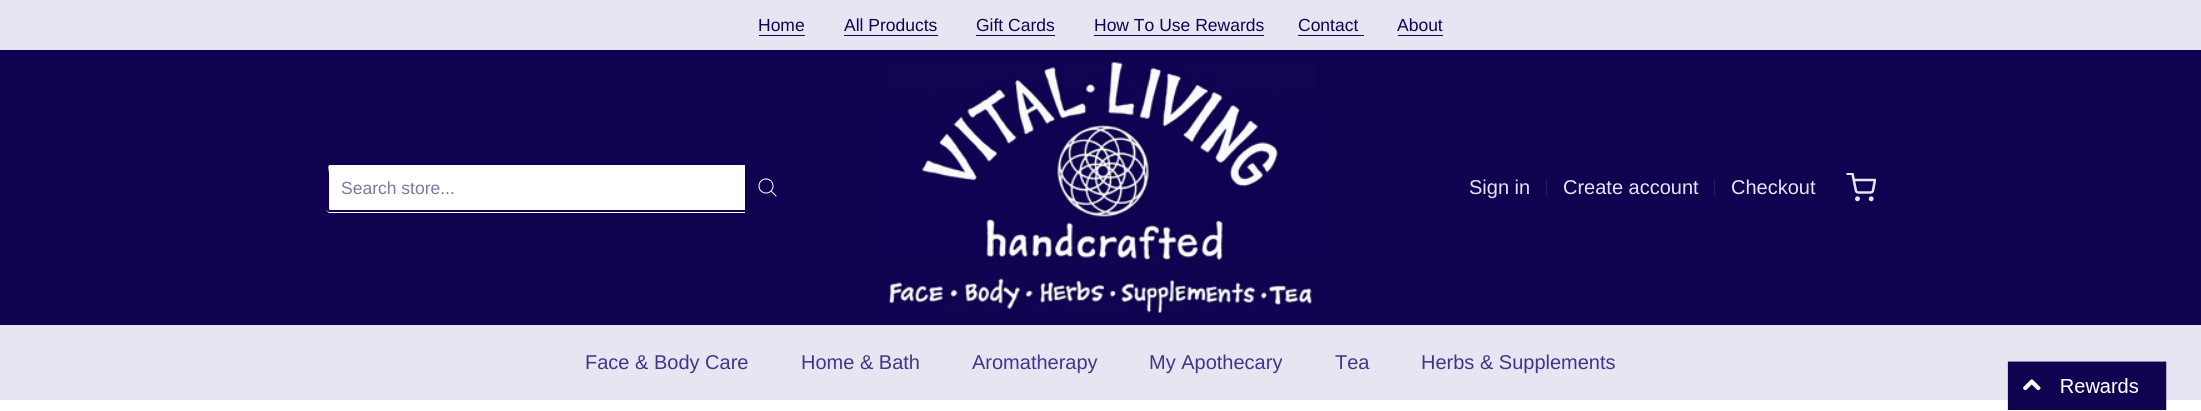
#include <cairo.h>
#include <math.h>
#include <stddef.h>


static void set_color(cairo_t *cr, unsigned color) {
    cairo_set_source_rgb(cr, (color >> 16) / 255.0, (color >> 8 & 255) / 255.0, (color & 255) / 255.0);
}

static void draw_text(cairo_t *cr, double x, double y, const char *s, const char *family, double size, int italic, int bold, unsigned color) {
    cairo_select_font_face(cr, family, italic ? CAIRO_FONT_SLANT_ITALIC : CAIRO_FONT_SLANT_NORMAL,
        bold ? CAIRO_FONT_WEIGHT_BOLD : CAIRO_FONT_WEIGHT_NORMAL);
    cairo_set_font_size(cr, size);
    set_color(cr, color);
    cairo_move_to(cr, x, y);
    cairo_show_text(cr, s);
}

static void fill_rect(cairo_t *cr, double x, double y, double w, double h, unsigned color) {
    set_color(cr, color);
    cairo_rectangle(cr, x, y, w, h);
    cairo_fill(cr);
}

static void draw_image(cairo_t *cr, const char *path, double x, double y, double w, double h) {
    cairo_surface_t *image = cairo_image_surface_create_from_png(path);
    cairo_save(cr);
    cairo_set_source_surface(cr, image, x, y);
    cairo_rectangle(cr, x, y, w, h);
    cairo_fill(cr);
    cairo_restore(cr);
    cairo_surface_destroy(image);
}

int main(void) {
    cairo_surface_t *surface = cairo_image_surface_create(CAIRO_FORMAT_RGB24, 2201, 411);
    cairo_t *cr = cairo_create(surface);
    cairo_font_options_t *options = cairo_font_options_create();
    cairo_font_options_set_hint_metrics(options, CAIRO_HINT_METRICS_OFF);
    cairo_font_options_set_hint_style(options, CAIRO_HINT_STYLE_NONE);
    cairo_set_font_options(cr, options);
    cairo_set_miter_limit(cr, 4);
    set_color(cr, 0xFFFFFF);
    cairo_paint(cr);
    fill_rect(cr, 0, 0, 2201, 50, 0xE6E6F3);
    draw_text(cr, 758, 31, "Home", "Liberation Sans", 17.5, 0, 0, 0x100251);
    fill_rect(cr, 759, 35, 46, 1, 0x100251);
    draw_text(cr, 844, 31, "All Products", "Liberation Sans", 17.5, 0, 0, 0x100251);
    fill_rect(cr, 844, 35, 94, 1, 0x100251);
    draw_text(cr, 976, 31, "Gift Cards", "Liberation Sans", 17.5, 0, 0, 0x100251);
    fill_rect(cr, 976, 35, 79, 1, 0x100251);
    draw_text(cr, 1094, 31, "How To Use Rewards", "Liberation Sans", 17.5, 0, 0, 0x100251);
    fill_rect(cr, 1094, 35, 170, 1, 0x100251);
    draw_text(cr, 1298, 31, "Contact", "Liberation Sans", 17.5, 0, 0, 0x100251);
    fill_rect(cr, 1298, 35, 66, 1, 0x100251);
    draw_text(cr, 1397, 31, "About", "Liberation Sans", 17.5, 0, 0, 0x100251);
    fill_rect(cr, 1398, 35, 45, 1, 0x100251);
    fill_rect(cr, 0, 50, 2201, 275, 0x100251);
    set_color(cr, 0xFFFFFF);
    cairo_new_path(cr);
    cairo_move_to(cr, 330, 163);
    cairo_line_to(cr, 745, 163);
    cairo_line_to(cr, 745, 213);
    cairo_line_to(cr, 330, 213);
    cairo_curve_to(cr, 328, 213, 326, 211, 326, 209);
    cairo_line_to(cr, 326, 167);
    cairo_curve_to(cr, 326, 165, 328, 163, 330, 163);
    cairo_close_path(cr);
    cairo_fill(cr);
    set_color(cr, 0x100251);
    cairo_set_fill_rule(cr, CAIRO_FILL_RULE_EVEN_ODD);
    cairo_new_path(cr);
    cairo_move_to(cr, 330, 162);
    cairo_line_to(cr, 745, 162);
    cairo_line_to(cr, 745, 212);
    cairo_line_to(cr, 330, 212);
    cairo_curve_to(cr, 328, 212, 326, 211, 326, 209);
    cairo_line_to(cr, 326, 166);
    cairo_curve_to(cr, 326, 164, 328, 162, 330, 162);
    cairo_close_path(cr);
    cairo_move_to(cr, 330, 165);
    cairo_line_to(cr, 745, 165);
    cairo_line_to(cr, 745, 210);
    cairo_line_to(cr, 330, 210);
    cairo_line_to(cr, 329, 209);
    cairo_line_to(cr, 329, 173);
    cairo_curve_to(cr, 329, 171, 327, 165, 330, 165);
    cairo_close_path(cr);
    cairo_fill(cr);
    draw_text(cr, 341, 194, "Search store...", "Liberation Sans", 17.5, 0, 0, 0x7E76A1);
    draw_image(cr, "assets/img1.png", 758, 178, 19, 19);
    draw_image(cr, "assets/img2.png", 888, 62, 427, 251);
    draw_text(cr, 1469, 194, "Sign in", "Liberation Sans", 20, 0, 0, 0xE6E6F3);
    fill_rect(cr, 1546, 179, 1, 17, 0x281C52);
    draw_text(cr, 1563, 194, "Create account", "Liberation Sans", 20, 0, 0, 0xE6E6F3);
    fill_rect(cr, 1714, 179, 1, 17, 0x281C52);
    draw_text(cr, 1731, 194, "Checkout", "Liberation Sans", 20, 0, 0, 0xE6E6F3);
    draw_image(cr, "assets/img3.png", 1846, 173, 30, 29);
    fill_rect(cr, 0, 325, 2201, 75, 0xE6E6F3);
    draw_text(cr, 585, 369, "Face & Body Care", "Liberation Sans", 20, 0, 0, 0x423487);
    draw_text(cr, 801, 369, "Home & Bath", "Liberation Sans", 20, 0, 0, 0x423487);
    draw_text(cr, 972, 369, "Aromatherapy", "Liberation Sans", 20, 0, 0, 0x423487);
    draw_text(cr, 1149, 369, "My Apothecary", "Liberation Sans", 20, 0, 0, 0x423487);
    draw_text(cr, 1335, 369, "Tea", "Liberation Sans", 20, 0, 0, 0x423487);
    draw_text(cr, 1421, 369, "Herbs & Supplements", "Liberation Sans", 20, 0, 0, 0x423487);
    draw_image(cr, "assets/img4.png", 2007, 361, 160, 49);
    cairo_surface_write_to_png(surface, "output.png");
    cairo_font_options_destroy(options);
    cairo_destroy(cr);
    cairo_surface_destroy(surface);
    return 0;
}
